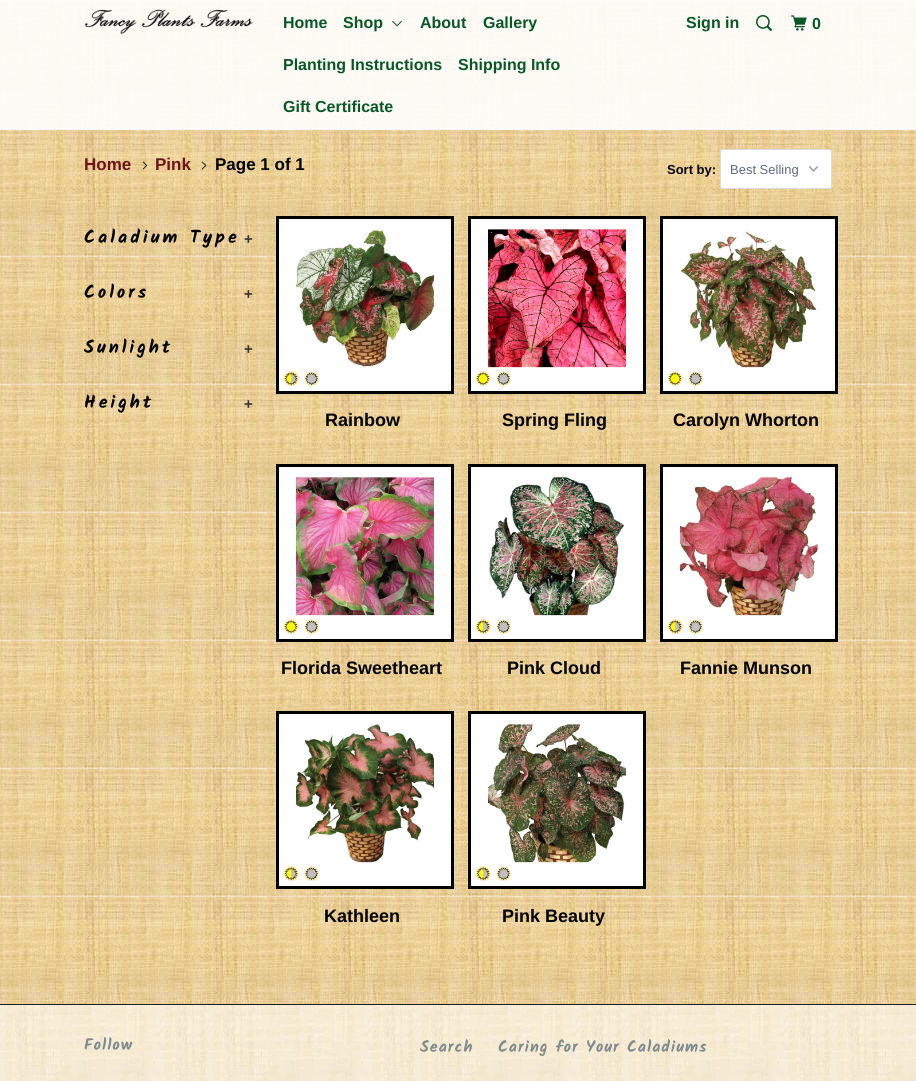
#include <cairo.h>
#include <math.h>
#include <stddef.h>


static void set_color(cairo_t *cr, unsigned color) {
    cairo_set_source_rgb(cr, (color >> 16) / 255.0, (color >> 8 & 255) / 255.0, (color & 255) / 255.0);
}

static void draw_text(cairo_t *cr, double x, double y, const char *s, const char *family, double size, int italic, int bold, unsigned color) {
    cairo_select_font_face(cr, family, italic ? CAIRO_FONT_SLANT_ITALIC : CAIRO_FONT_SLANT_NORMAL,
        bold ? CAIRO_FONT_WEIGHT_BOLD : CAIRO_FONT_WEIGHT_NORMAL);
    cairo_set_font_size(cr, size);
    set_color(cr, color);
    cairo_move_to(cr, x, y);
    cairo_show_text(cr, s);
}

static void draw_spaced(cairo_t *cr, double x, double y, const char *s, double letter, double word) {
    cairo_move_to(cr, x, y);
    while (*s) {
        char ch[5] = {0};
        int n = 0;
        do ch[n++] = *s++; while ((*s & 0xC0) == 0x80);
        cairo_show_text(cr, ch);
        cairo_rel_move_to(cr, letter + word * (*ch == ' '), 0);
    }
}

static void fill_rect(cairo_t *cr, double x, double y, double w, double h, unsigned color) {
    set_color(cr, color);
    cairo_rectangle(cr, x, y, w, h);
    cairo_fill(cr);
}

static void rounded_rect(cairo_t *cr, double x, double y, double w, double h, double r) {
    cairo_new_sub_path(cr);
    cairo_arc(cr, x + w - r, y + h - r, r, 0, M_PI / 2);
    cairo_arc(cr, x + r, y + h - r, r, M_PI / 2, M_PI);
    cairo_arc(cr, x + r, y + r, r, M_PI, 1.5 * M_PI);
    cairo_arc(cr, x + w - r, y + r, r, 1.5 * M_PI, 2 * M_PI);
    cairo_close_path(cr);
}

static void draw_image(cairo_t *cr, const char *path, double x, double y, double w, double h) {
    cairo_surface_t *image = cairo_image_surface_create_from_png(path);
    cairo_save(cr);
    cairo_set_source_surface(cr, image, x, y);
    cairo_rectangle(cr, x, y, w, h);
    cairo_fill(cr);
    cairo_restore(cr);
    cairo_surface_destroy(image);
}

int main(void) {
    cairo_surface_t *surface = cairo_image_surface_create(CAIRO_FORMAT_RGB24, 916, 1081);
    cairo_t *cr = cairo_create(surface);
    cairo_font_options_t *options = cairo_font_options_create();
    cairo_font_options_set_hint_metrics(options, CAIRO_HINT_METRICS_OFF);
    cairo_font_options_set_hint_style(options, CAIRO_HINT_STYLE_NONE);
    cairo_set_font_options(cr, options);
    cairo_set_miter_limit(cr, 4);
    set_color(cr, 0xFFFFFF);
    cairo_paint(cr);
    draw_image(cr, "assets/img1.png", 0, 0, 916, 1004);
    cairo_set_source_rgba(cr, 1, 1, 1, 0.9);
    cairo_rectangle(cr, 0, 0, 916, 130);
    cairo_fill(cr);
    draw_image(cr, "assets/img2.png", 84, 9, 169, 26);
    draw_text(cr, 283, 28, "Home", "Liberation Sans", 16, 0, 1, 0x075727);
    draw_text(cr, 343, 28, "Shop", "Liberation Sans", 16, 0, 1, 0x075727);
    draw_image(cr, "assets/img3.png", 392, 20, 10, 7);
    draw_text(cr, 420, 28, "About", "Liberation Sans", 16, 0, 1, 0x075727);
    draw_text(cr, 483, 28, "Gallery", "Liberation Sans", 16, 0, 1, 0x075727);
    draw_text(cr, 283, 70, "Planting Instructions", "Liberation Sans", 16, 0, 1, 0x075727);
    draw_text(cr, 458, 70, "Shipping Info", "Liberation Sans", 16, 0, 1, 0x075727);
    draw_text(cr, 283, 112, "Gift Certificate", "Liberation Sans", 16, 0, 1, 0x075727);
    draw_text(cr, 686, 28, "Sign in", "Liberation Sans", 16, 0, 1, 0x075727);
    draw_image(cr, "assets/img4.png", 756, 15, 16, 16);
    draw_image(cr, "assets/img5.png", 791, 15, 16, 16);
    draw_text(cr, 812, 29, "0", "Liberation Sans", 16, 0, 1, 0x075727);
    draw_text(cr, 84, 170, "Home", "Liberation Sans", 17, 0, 1, 0x6B1518);
    draw_image(cr, "assets/img6.png", 142, 161, 6, 9);
    draw_text(cr, 155, 170, "Pink", "Liberation Sans", 17, 0, 1, 0x6B1518);
    draw_image(cr, "assets/img7.png", 201, 161, 6, 9);
    draw_text(cr, 215, 170, "Page 1 of 1", "Liberation Sans", 17, 0, 1, 0x000000);
    draw_text(cr, 667, 174, "Sort by:", "Liberation Sans", 13, 0, 1, 0x000000);
    set_color(cr, 0xFFFFFF);
    rounded_rect(cr, 720, 149, 112, 40, 3);
    cairo_fill(cr);
    draw_image(cr, "assets/img8.png", 809, 166, 9, 6);
    rounded_rect(cr, 720.5, 149.5, 111, 39, 2.5);
    set_color(cr, 0xD9DBDC);
    cairo_set_line_width(cr, 1);
    cairo_stroke(cr);
    draw_text(cr, 730, 174, "Best Selling", "Liberation Sans", 13, 0, 0, 0x5F6A7D);
    cairo_select_font_face(cr, "Kalam", CAIRO_FONT_SLANT_NORMAL, CAIRO_FONT_WEIGHT_BOLD);
    cairo_set_font_size(cr, 18);
    set_color(cr, 0x000000);
    draw_spaced(cr, 84, 243, "Caladium Type", 3, 0);
    cairo_select_font_face(cr, "Liberation Sans", CAIRO_FONT_SLANT_NORMAL, CAIRO_FONT_WEIGHT_BOLD);
    cairo_set_font_size(cr, 15);
    set_color(cr, 0x363636);
    draw_spaced(cr, 244, 244, "+", 3, 0);
    cairo_select_font_face(cr, "Kalam", CAIRO_FONT_SLANT_NORMAL, CAIRO_FONT_WEIGHT_BOLD);
    cairo_set_font_size(cr, 18);
    set_color(cr, 0x000000);
    draw_spaced(cr, 84, 298, "Colors", 3, 0);
    cairo_select_font_face(cr, "Liberation Sans", CAIRO_FONT_SLANT_NORMAL, CAIRO_FONT_WEIGHT_BOLD);
    cairo_set_font_size(cr, 15);
    set_color(cr, 0x363636);
    draw_spaced(cr, 244, 299, "+", 3, 0);
    cairo_select_font_face(cr, "Kalam", CAIRO_FONT_SLANT_NORMAL, CAIRO_FONT_WEIGHT_BOLD);
    cairo_set_font_size(cr, 18);
    set_color(cr, 0x000000);
    draw_spaced(cr, 84, 353, "Sunlight", 3, 0);
    cairo_select_font_face(cr, "Liberation Sans", CAIRO_FONT_SLANT_NORMAL, CAIRO_FONT_WEIGHT_BOLD);
    cairo_set_font_size(cr, 15);
    set_color(cr, 0x363636);
    draw_spaced(cr, 244, 354, "+", 3, 0);
    cairo_select_font_face(cr, "Kalam", CAIRO_FONT_SLANT_NORMAL, CAIRO_FONT_WEIGHT_BOLD);
    cairo_set_font_size(cr, 18);
    set_color(cr, 0x000000);
    draw_spaced(cr, 84, 408, "Height", 3, 0);
    cairo_select_font_face(cr, "Liberation Sans", CAIRO_FONT_SLANT_NORMAL, CAIRO_FONT_WEIGHT_BOLD);
    cairo_set_font_size(cr, 15);
    set_color(cr, 0x363636);
    draw_spaced(cr, 244, 409, "+", 3, 0);
    cairo_rectangle(cr, 277.5, 217.5, 175, 175);
    set_color(cr, 0x000000);
    cairo_set_line_width(cr, 3);
    cairo_stroke(cr);
    draw_image(cr, "assets/img9.png", 279, 219, 172, 172);
    draw_text(cr, 325, 426, "Rainbow", "Liberation Sans", 18, 0, 1, 0x000000);
    cairo_rectangle(cr, 469.5, 217.5, 175, 175);
    cairo_stroke(cr);
    draw_image(cr, "assets/img10.png", 471, 219, 172, 172);
    draw_text(cr, 502, 426, "Spring Fling", "Liberation Sans", 18, 0, 1, 0x000000);
    cairo_rectangle(cr, 661.5, 217.5, 175, 175);
    cairo_stroke(cr);
    draw_image(cr, "assets/img11.png", 663, 219, 172, 172);
    draw_text(cr, 673, 426, "Carolyn Whorton", "Liberation Sans", 18, 0, 1, 0x000000);
    cairo_rectangle(cr, 277.5, 465.5, 175, 175);
    cairo_stroke(cr);
    draw_image(cr, "assets/img12.png", 279, 467, 172, 172);
    draw_text(cr, 281, 674, "Florida Sweetheart", "Liberation Sans", 18, 0, 1, 0x000000);
    cairo_rectangle(cr, 469.5, 465.5, 175, 175);
    cairo_stroke(cr);
    draw_image(cr, "assets/img13.png", 471, 467, 172, 172);
    draw_text(cr, 507, 674, "Pink Cloud", "Liberation Sans", 18, 0, 1, 0x000000);
    cairo_rectangle(cr, 661.5, 465.5, 175, 175);
    cairo_stroke(cr);
    draw_image(cr, "assets/img14.png", 663, 467, 172, 172);
    draw_text(cr, 680, 674, "Fannie Munson", "Liberation Sans", 18, 0, 1, 0x000000);
    cairo_rectangle(cr, 277.5, 712.5, 175, 175);
    cairo_stroke(cr);
    draw_image(cr, "assets/img15.png", 279, 714, 172, 172);
    draw_text(cr, 324, 922, "Kathleen", "Liberation Sans", 18, 0, 1, 0x000000);
    cairo_rectangle(cr, 469.5, 712.5, 175, 175);
    cairo_stroke(cr);
    draw_image(cr, "assets/img16.png", 471, 714, 172, 172);
    draw_text(cr, 502, 922, "Pink Beauty", "Liberation Sans", 18, 0, 1, 0x000000);
    draw_image(cr, "assets/img17.png", 0, 1005, 916, 76);
    fill_rect(cr, 0, 1004, 916, 1, 0x1B1F23);
    cairo_select_font_face(cr, "Kalam", CAIRO_FONT_SLANT_NORMAL, CAIRO_FONT_WEIGHT_BOLD);
    cairo_set_font_size(cr, 16);
    set_color(cr, 0x7F8C8D);
    draw_spaced(cr, 84, 1050, "Follow", 1, 0);
    draw_spaced(cr, 420, 1052, "Search", 1, 0);
    draw_spaced(cr, 498, 1052, "Caring for Your Caladiums", 1, 0);
    cairo_surface_write_to_png(surface, "output.png");
    cairo_font_options_destroy(options);
    cairo_destroy(cr);
    cairo_surface_destroy(surface);
    return 0;
}
